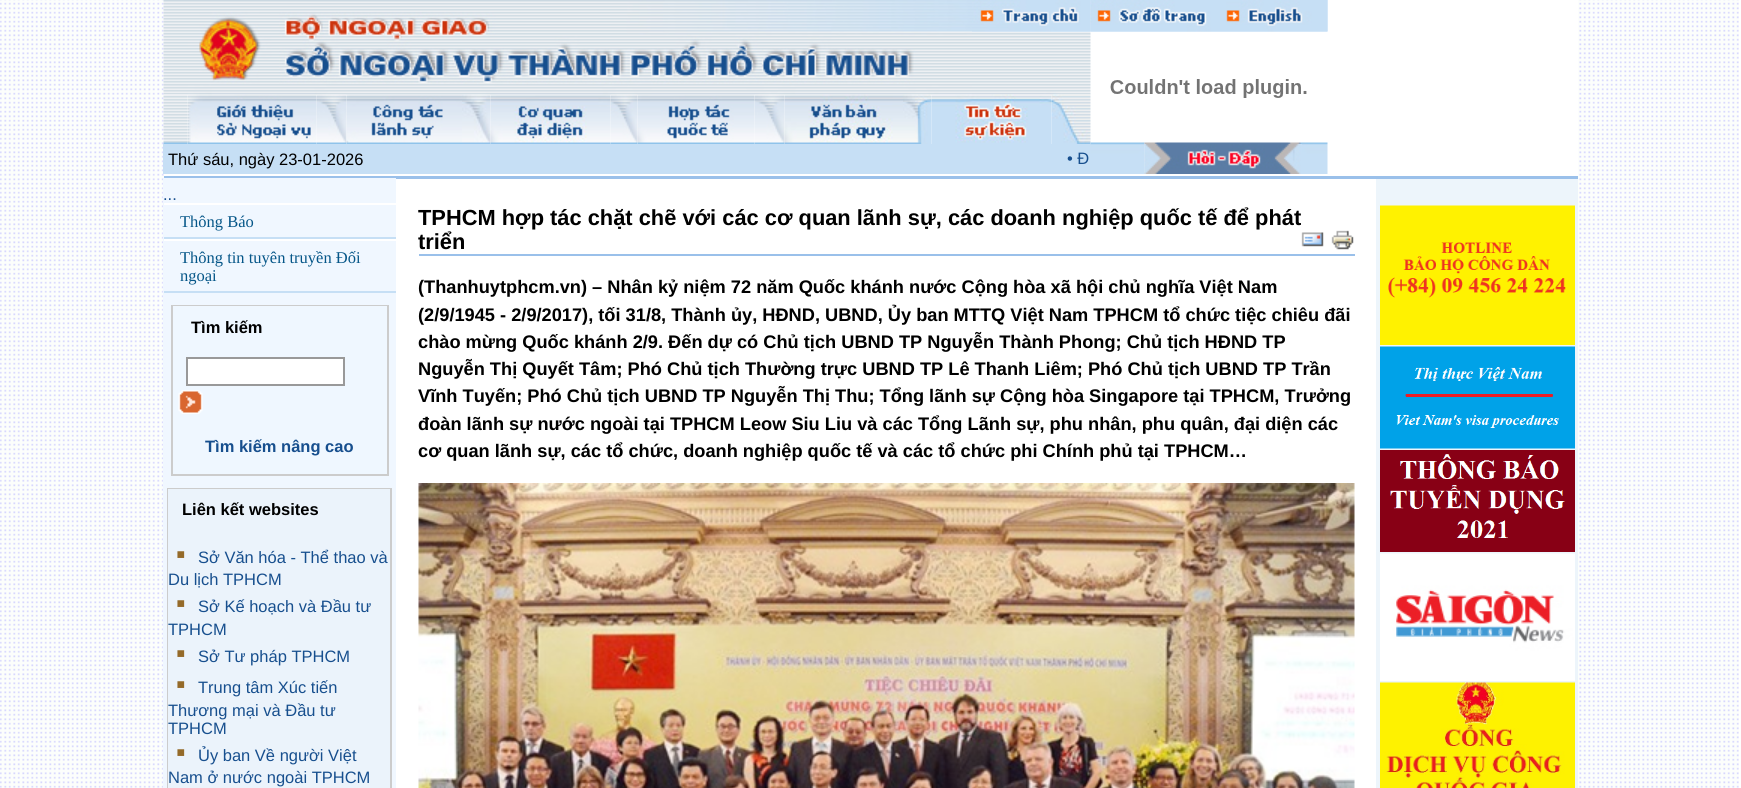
#include <cairo.h>
#include <math.h>
#include <stddef.h>


static void set_color(cairo_t *cr, unsigned color) {
    cairo_set_source_rgb(cr, (color >> 16) / 255.0, (color >> 8 & 255) / 255.0, (color & 255) / 255.0);
}

static void draw_text(cairo_t *cr, double x, double y, const char *s, const char *family, double size, int italic, int bold, unsigned color) {
    cairo_select_font_face(cr, family, italic ? CAIRO_FONT_SLANT_ITALIC : CAIRO_FONT_SLANT_NORMAL,
        bold ? CAIRO_FONT_WEIGHT_BOLD : CAIRO_FONT_WEIGHT_NORMAL);
    cairo_set_font_size(cr, size);
    set_color(cr, color);
    cairo_move_to(cr, x, y);
    cairo_show_text(cr, s);
}

static void fill_rect(cairo_t *cr, double x, double y, double w, double h, unsigned color) {
    set_color(cr, color);
    cairo_rectangle(cr, x, y, w, h);
    cairo_fill(cr);
}

static void draw_image(cairo_t *cr, const char *path, double x, double y, double w, double h) {
    cairo_surface_t *image = cairo_image_surface_create_from_png(path);
    cairo_save(cr);
    cairo_set_source_surface(cr, image, x, y);
    cairo_rectangle(cr, x, y, w, h);
    cairo_fill(cr);
    cairo_restore(cr);
    cairo_surface_destroy(image);
}

int main(void) {
    cairo_surface_t *surface = cairo_image_surface_create(CAIRO_FORMAT_RGB24, 1741, 788);
    cairo_t *cr = cairo_create(surface);
    cairo_font_options_t *options = cairo_font_options_create();
    cairo_font_options_set_hint_metrics(options, CAIRO_HINT_METRICS_OFF);
    cairo_font_options_set_hint_style(options, CAIRO_HINT_STYLE_NONE);
    cairo_set_font_options(cr, options);
    cairo_set_miter_limit(cr, 4);
    set_color(cr, 0xFFFFFF);
    cairo_paint(cr);
    draw_image(cr, "assets/img1.png", 0, 0, 1739, 788);
    fill_rect(cr, 164, 0, 1414, 788, 0xFFFFFF);
    draw_image(cr, "assets/img2.png", 163, 0, 116, 95);
    draw_image(cr, "assets/img3.png", 279, 0, 693, 95);
    draw_image(cr, "assets/img10.png", 972, 31, 119, 64);
    draw_image(cr, "assets/img4.png", 972, 0, 119, 32);
    draw_image(cr, "assets/img5.png", 972, 0, 119, 32);
    draw_image(cr, "assets/img6.png", 1090, 0, 125, 32);
    draw_image(cr, "assets/img7.png", 1090, 0, 125, 32);
    draw_image(cr, "assets/img8.png", 1215, 0, 113, 32);
    draw_image(cr, "assets/img9.png", 1215, 0, 113, 32);
    draw_image(cr, "assets/img11.png", 1110, 79, 197, 19);
    draw_image(cr, "assets/img12.png", 163, 94, 25, 50);
    draw_image(cr, "assets/img13.png", 187, 94, 130, 50);
    draw_image(cr, "assets/img14.png", 316, 94, 31, 50);
    draw_image(cr, "assets/img15.png", 346, 95, 116, 49);
    draw_image(cr, "assets/img16.png", 462, 94, 29, 50);
    draw_image(cr, "assets/img17.png", 490, 95, 121, 49);
    draw_image(cr, "assets/img18.png", 610, 94, 28, 50);
    draw_image(cr, "assets/img19.png", 637, 95, 118, 49);
    draw_image(cr, "assets/img20.png", 754, 94, 31, 50);
    draw_image(cr, "assets/img21.png", 784, 94, 119, 50);
    draw_image(cr, "assets/img22.png", 903, 94, 29, 50);
    draw_image(cr, "assets/img23.png", 931, 94, 121, 50);
    draw_image(cr, "assets/img24.png", 1051, 94, 40, 50);
    fill_rect(cr, 163, 144, 928, 30, 0xC6DFF5);
    draw_text(cr, 168, 165, "Thứ sáu, ngày 23-01-2026", "Liberation Sans", 16.5, 0, 0, 0x000000);
    draw_text(cr, 1067, 164, "• Đ", "Liberation Sans", 16.5, 0, 0, 0x174F8E);
    draw_image(cr, "assets/img27.png", 1090, 142, 55, 32);
    draw_image(cr, "assets/img25.png", 1144, 144, 158, 30);
    draw_image(cr, "assets/img26.png", 1144, 144, 157, 30);
    draw_image(cr, "assets/img28.png", 1144, 142, 158, 2);
    draw_image(cr, "assets/img29.png", 1302, 142, 26, 32);
    fill_rect(cr, 164, 176, 1414, 3, 0x9AC0EA);
    fill_rect(cr, 163, 178, 233, 610, 0xF0F7FF);
    draw_text(cr, 163, 200, "...", "Liberation Sans", 16.5, 0, 0, 0x174F8E);
    fill_rect(cr, 164, 203, 232, 2, 0xFFFFFF);
    fill_rect(cr, 164, 237, 232, 2, 0xC6DFF5);
    draw_text(cr, 180, 227, "Thông Báo", "Liberation Serif", 16.5, 0, 0, 0x055688);
    fill_rect(cr, 164, 239, 232, 2, 0xFFFFFF);
    fill_rect(cr, 164, 291, 232, 2, 0xC6DFF5);
    draw_text(cr, 180, 263, "Thông tin tuyên truyền Đối", "Liberation Serif", 16.5, 0, 0, 0x055688);
    draw_text(cr, 180, 281, "ngoại", "Liberation Serif", 16.5, 0, 0, 0x055688);
    fill_rect(cr, 171, 305, 218, 171, 0xCCCCCC);
    fill_rect(cr, 173, 306, 214, 168, 0xEFF7FF);
    draw_text(cr, 191, 333, "Tìm kiếm", "Liberation Sans", 16.5, 0, 1, 0x000000);
    set_color(cr, 0xFFFFFF);
    cairo_rectangle(cr, 187, 358, 157, 27);
    cairo_fill_preserve(cr);
    set_color(cr, 0x999999);
    cairo_stroke(cr);
    draw_image(cr, "assets/img30.png", 178, 390, 25, 24);
    draw_text(cr, 205, 452, "Tìm kiếm nâng cao", "Liberation Sans", 16.5, 0, 1, 0x174F8E);
    fill_rect(cr, 167, 488, 225, 300, 0xCCCCCC);
    fill_rect(cr, 168, 489, 222, 299, 0xEBF3FB);
    draw_text(cr, 182, 515, "Liên kết websites", "Liberation Sans", 16.5, 0, 1, 0x000000);
    draw_text(cr, 176, 563, "▪", "Liberation Sans", 27, 0, 0, 0x946A29);
    draw_text(cr, 198, 563, "Sở Văn hóa - Thể thao và", "Liberation Sans", 16.5, 0, 0, 0x174F8E);
    draw_text(cr, 168, 585, "Du lịch TPHCM", "Liberation Sans", 16.5, 0, 0, 0x174F8E);
    draw_text(cr, 176, 612, "▪", "Liberation Sans", 27, 0, 0, 0x946A29);
    draw_text(cr, 198, 612, "Sở Kế hoạch và Đầu tư", "Liberation Sans", 16.5, 0, 0, 0x174F8E);
    draw_text(cr, 168, 635, "TPHCM", "Liberation Sans", 16.5, 0, 0, 0x174F8E);
    draw_text(cr, 176, 662, "▪", "Liberation Sans", 27, 0, 0, 0x946A29);
    draw_text(cr, 198, 662, "Sở Tư pháp TPHCM", "Liberation Sans", 16.5, 0, 0, 0x174F8E);
    draw_text(cr, 176, 693, "▪", "Liberation Sans", 27, 0, 0, 0x946A29);
    draw_text(cr, 198, 693, "Trung tâm Xúc tiến", "Liberation Sans", 16.5, 0, 0, 0x174F8E);
    draw_text(cr, 168, 716, "Thương mại và Đầu tư", "Liberation Sans", 16.5, 0, 0, 0x174F8E);
    draw_text(cr, 168, 734, "TPHCM", "Liberation Sans", 16.5, 0, 0, 0x174F8E);
    draw_text(cr, 176, 761, "▪", "Liberation Sans", 27, 0, 0, 0x946A29);
    draw_text(cr, 198, 761, "Ủy ban Về người Việt", "Liberation Sans", 16.5, 0, 0, 0x174F8E);
    draw_text(cr, 168, 783, "Nam ở nước ngoài TPHCM", "Liberation Sans", 16.5, 0, 0, 0x174F8E);
    fill_rect(cr, 419, 254, 936, 2, 0x9AC0EA);
    draw_text(cr, 418, 225, "TPHCM hợp tác chặt chẽ với các cơ quan lãnh sự, các doanh nghiệp quốc tế để phát", "Liberation Sans", 21.85, 0, 1, 0x000000);
    draw_text(cr, 418, 249, "triển", "Liberation Sans", 21.85, 0, 1, 0x000000);
    draw_image(cr, "assets/img31.png", 1301, 232, 23, 15);
    draw_image(cr, "assets/img32.png", 1331, 230, 23, 20);
    draw_text(cr, 418, 293, "(Thanhuytphcm.vn) – Nhân kỷ niệm 72 năm Quốc khánh nước Cộng hòa xã hội chủ nghĩa Việt Nam", "Liberation Sans", 18.22, 0, 1, 0x000000);
    draw_text(cr, 418, 321, "(2/9/1945 - 2/9/2017), tối 31/8, Thành ủy, HĐND, UBND, Ủy ban MTTQ Việt Nam TPHCM tổ chức tiệc chiêu đãi", "Liberation Sans", 18.22, 0, 1, 0x000000);
    draw_text(cr, 418, 348, "chào mừng Quốc khánh 2/9. Đến dự có Chủ tịch UBND TP Nguyễn Thành Phong; Chủ tịch HĐND TP", "Liberation Sans", 18.22, 0, 1, 0x000000);
    draw_text(cr, 418, 375, "Nguyễn Thị Quyết Tâm; Phó Chủ tịch Thường trực UBND TP Lê Thanh Liêm; Phó Chủ tịch UBND TP Trần", "Liberation Sans", 18.22, 0, 1, 0x000000);
    draw_text(cr, 418, 402, "Vĩnh Tuyến; Phó Chủ tịch UBND TP Nguyễn Thị Thu; Tổng lãnh sự Cộng hòa Singapore tại TPHCM, Trưởng", "Liberation Sans", 18.22, 0, 1, 0x000000);
    draw_text(cr, 418, 430, "đoàn lãnh sự nước ngoài tại TPHCM Leow Siu Liu và các Tổng Lãnh sự, phu nhân, phu quân, đại diện các", "Liberation Sans", 18.22, 0, 1, 0x000000);
    draw_text(cr, 418, 457, "cơ quan lãnh sự, các tổ chức, doanh nghiệp quốc tế và các tổ chức phi Chính phủ tại TPHCM…", "Liberation Sans", 18.22, 0, 1, 0x000000);
    draw_image(cr, "assets/img33.png", 418, 483, 937, 305);
    fill_rect(cr, 1376, 179, 202, 609, 0xEDF5FB);
    draw_image(cr, "assets/img34.png", 1380, 205, 195, 140);
    draw_image(cr, "assets/img35.png", 1380, 346, 195, 103);
    draw_image(cr, "assets/img36.png", 1380, 450, 195, 102);
    draw_image(cr, "assets/img37.png", 1380, 553, 195, 128);
    draw_image(cr, "assets/img38.png", 1380, 682, 195, 106);
    cairo_surface_write_to_png(surface, "output.png");
    cairo_font_options_destroy(options);
    cairo_destroy(cr);
    cairo_surface_destroy(surface);
    return 0;
}
